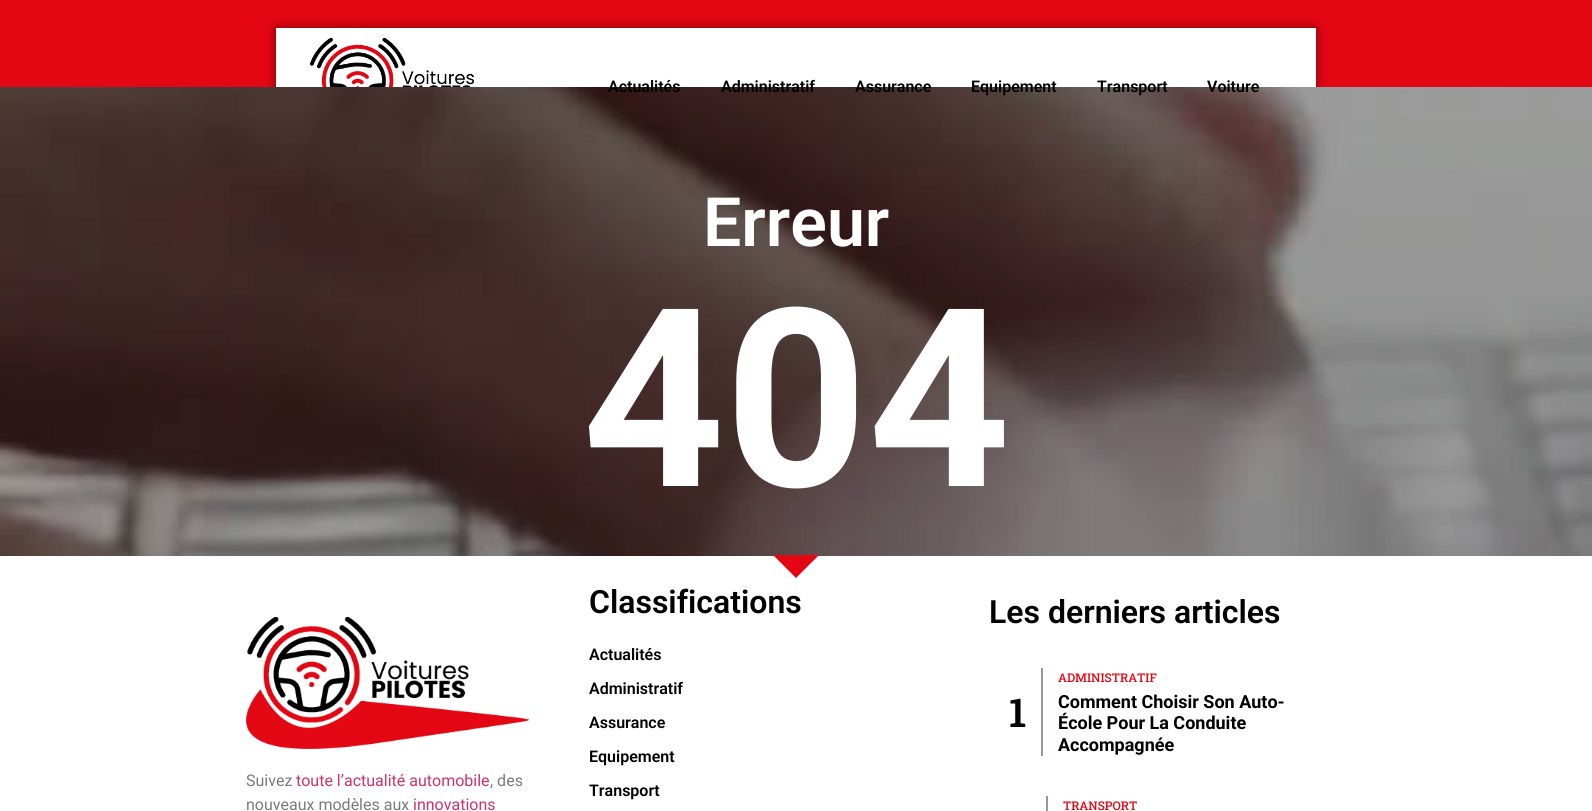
#include <cairo.h>
#include <math.h>
#include <stddef.h>


static void set_color(cairo_t *cr, unsigned color) {
    cairo_set_source_rgb(cr, (color >> 16) / 255.0, (color >> 8 & 255) / 255.0, (color & 255) / 255.0);
}

static void draw_text(cairo_t *cr, double x, double y, const char *s, const char *family, double size, int italic, int bold, unsigned color) {
    cairo_select_font_face(cr, family, italic ? CAIRO_FONT_SLANT_ITALIC : CAIRO_FONT_SLANT_NORMAL,
        bold ? CAIRO_FONT_WEIGHT_BOLD : CAIRO_FONT_WEIGHT_NORMAL);
    cairo_set_font_size(cr, size);
    set_color(cr, color);
    cairo_move_to(cr, x, y);
    cairo_show_text(cr, s);
}

static void fill_rect(cairo_t *cr, double x, double y, double w, double h, unsigned color) {
    set_color(cr, color);
    cairo_rectangle(cr, x, y, w, h);
    cairo_fill(cr);
}

static void rounded_rect(cairo_t *cr, double x, double y, double w, double h, double r) {
    cairo_new_sub_path(cr);
    cairo_arc(cr, x + w - r, y + h - r, r, 0, M_PI / 2);
    cairo_arc(cr, x + r, y + h - r, r, M_PI / 2, M_PI);
    cairo_arc(cr, x + r, y + r, r, M_PI, 1.5 * M_PI);
    cairo_arc(cr, x + w - r, y + r, r, 1.5 * M_PI, 2 * M_PI);
    cairo_close_path(cr);
}

static void draw_shadow(cairo_t *cr, double x, double y, double w, double h, double r, double blur, double alpha) {
    cairo_push_group_with_content(cr, CAIRO_CONTENT_ALPHA);
    cairo_set_operator(cr, CAIRO_OPERATOR_SOURCE);
    for (int i = 15; i >= -15 && fmin(w, h) + blur * i / 3 > 0; i -= 2) {
        double e = blur * i / 6;
        cairo_set_source_rgba(cr, 0, 0, 0, alpha * erfc((i - 1) / 8.5) / 2);
        rounded_rect(cr, x - e, y - e, w + 2 * e, h + 2 * e, fmax(0, fmin(r + e + blur * .6, fmin(w, h) / 2 + e)));
        cairo_fill(cr);
    }
    cairo_pattern_t *soft = cairo_pop_group(cr);
    cairo_mask(cr, soft);
    cairo_pattern_destroy(soft);
}

static void draw_image(cairo_t *cr, const char *path, double x, double y, double w, double h) {
    cairo_surface_t *image = cairo_image_surface_create_from_png(path);
    cairo_save(cr);
    cairo_set_source_surface(cr, image, x, y);
    cairo_rectangle(cr, x, y, w, h);
    cairo_fill(cr);
    cairo_restore(cr);
    cairo_surface_destroy(image);
}

int main(void) {
    cairo_surface_t *surface = cairo_image_surface_create(CAIRO_FORMAT_RGB24, 1592, 811);
    cairo_t *cr = cairo_create(surface);
    cairo_font_options_t *options = cairo_font_options_create();
    cairo_font_options_set_hint_metrics(options, CAIRO_HINT_METRICS_OFF);
    cairo_font_options_set_hint_style(options, CAIRO_HINT_STYLE_NONE);
    cairo_set_font_options(cr, options);
    cairo_set_miter_limit(cr, 4);
    set_color(cr, 0xFFFFFF);
    cairo_paint(cr);
    fill_rect(cr, 0, 0, 1592, 87, 0xE30613);
    set_color(cr, 0x000000);
    draw_shadow(cr, 276, 28, 1040, 120, 0, 5, 0.5);
    fill_rect(cr, 276, 28, 1040, 59, 0xFFFFFF);
    draw_image(cr, "assets/img1.png", 309, 38, 165, 49);
    draw_image(cr, "assets/img2.png", 0, 87, 1592, 469);
    draw_text(cr, 608, 92, "Actualités", "Roboto SemiBold", 16, 0, 0, 0x000000);
    draw_text(cr, 721, 92, "Administratif", "Roboto SemiBold", 16, 0, 0, 0x000000);
    draw_text(cr, 855, 92, "Assurance", "Roboto SemiBold", 16, 0, 0, 0x000000);
    draw_text(cr, 971, 92, "Equipement", "Roboto SemiBold", 16, 0, 0, 0x000000);
    draw_text(cr, 1097, 92, "Transport", "Roboto SemiBold", 16, 0, 0, 0x000000);
    draw_text(cr, 1207, 92, "Voiture", "Roboto SemiBold", 16, 0, 0, 0x000000);
    draw_text(cr, 703, 246, "Erreur", "Roboto SemiBold", 68, 0, 0, 0xFFFFFF);
    draw_text(cr, 582, 486, "404", "Roboto", 249, 0, 1, 0xFFFFFF);
    set_color(cr, 0xE30613);
    cairo_new_path(cr);
    cairo_move_to(cr, 796, 578);
    cairo_line_to(cr, 773, 555);
    cairo_line_to(cr, 819, 555);
    cairo_close_path(cr);
    cairo_fill(cr);
    draw_image(cr, "assets/img3.png", 246, 617, 283, 132);
    draw_text(cr, 246, 786, "Suivez", "Roboto", 16, 0, 0, 0x7A7A7A);
    draw_text(cr, 296, 786, "toute l’actualité automobile", "Roboto", 16, 0, 0, 0xCC3366);
    draw_text(cr, 490, 786, ", des", "Roboto", 16, 0, 0, 0x7A7A7A);
    draw_text(cr, 246, 810, "nouveaux modèles aux", "Roboto", 16, 0, 0, 0x7A7A7A);
    draw_text(cr, 413, 810, "innovations", "Roboto", 16, 0, 0, 0xCC3366);
    draw_text(cr, 589, 613, "Classifications", "Roboto SemiBold", 32, 0, 0, 0x000000);
    draw_text(cr, 589, 660, "Actualités", "Roboto SemiBold", 16, 0, 0, 0x000000);
    draw_text(cr, 589, 694, "Administratif", "Roboto SemiBold", 16, 0, 0, 0x000000);
    draw_text(cr, 589, 728, "Assurance", "Roboto SemiBold", 16, 0, 0, 0x000000);
    draw_text(cr, 589, 762, "Equipement", "Roboto SemiBold", 16, 0, 0, 0x000000);
    draw_text(cr, 589, 796, "Transport", "Roboto SemiBold", 16, 0, 0, 0x000000);
    draw_text(cr, 989, 623, "Les derniers articles", "Roboto SemiBold", 32, 0, 0, 0x000000);
    draw_text(cr, 1009, 727, "1", "Roboto Slab SemiBold", 40, 0, 0, 0x000000);
    fill_rect(cr, 1041, 668, 2, 88, 0x8D99AE);
    draw_text(cr, 1058, 682, "ADMINISTRATIF", "Roboto Slab Medium", 12, 0, 0, 0xE30613);
    draw_text(cr, 1058, 708, "Comment Choisir Son Auto-", "Roboto", 18, 0, 1, 0x000000);
    draw_text(cr, 1058, 729, "École Pour La Conduite", "Roboto", 18, 0, 1, 0x000000);
    draw_text(cr, 1058, 751, "Accompagnée", "Roboto", 18, 0, 1, 0x000000);
    fill_rect(cr, 1046, 796, 2, 15, 0x8D99AE);
    draw_text(cr, 1063, 810, "TRANSPORT", "Roboto Slab Medium", 12, 0, 0, 0xE30613);
    cairo_surface_write_to_png(surface, "output.png");
    cairo_font_options_destroy(options);
    cairo_destroy(cr);
    cairo_surface_destroy(surface);
    return 0;
}
